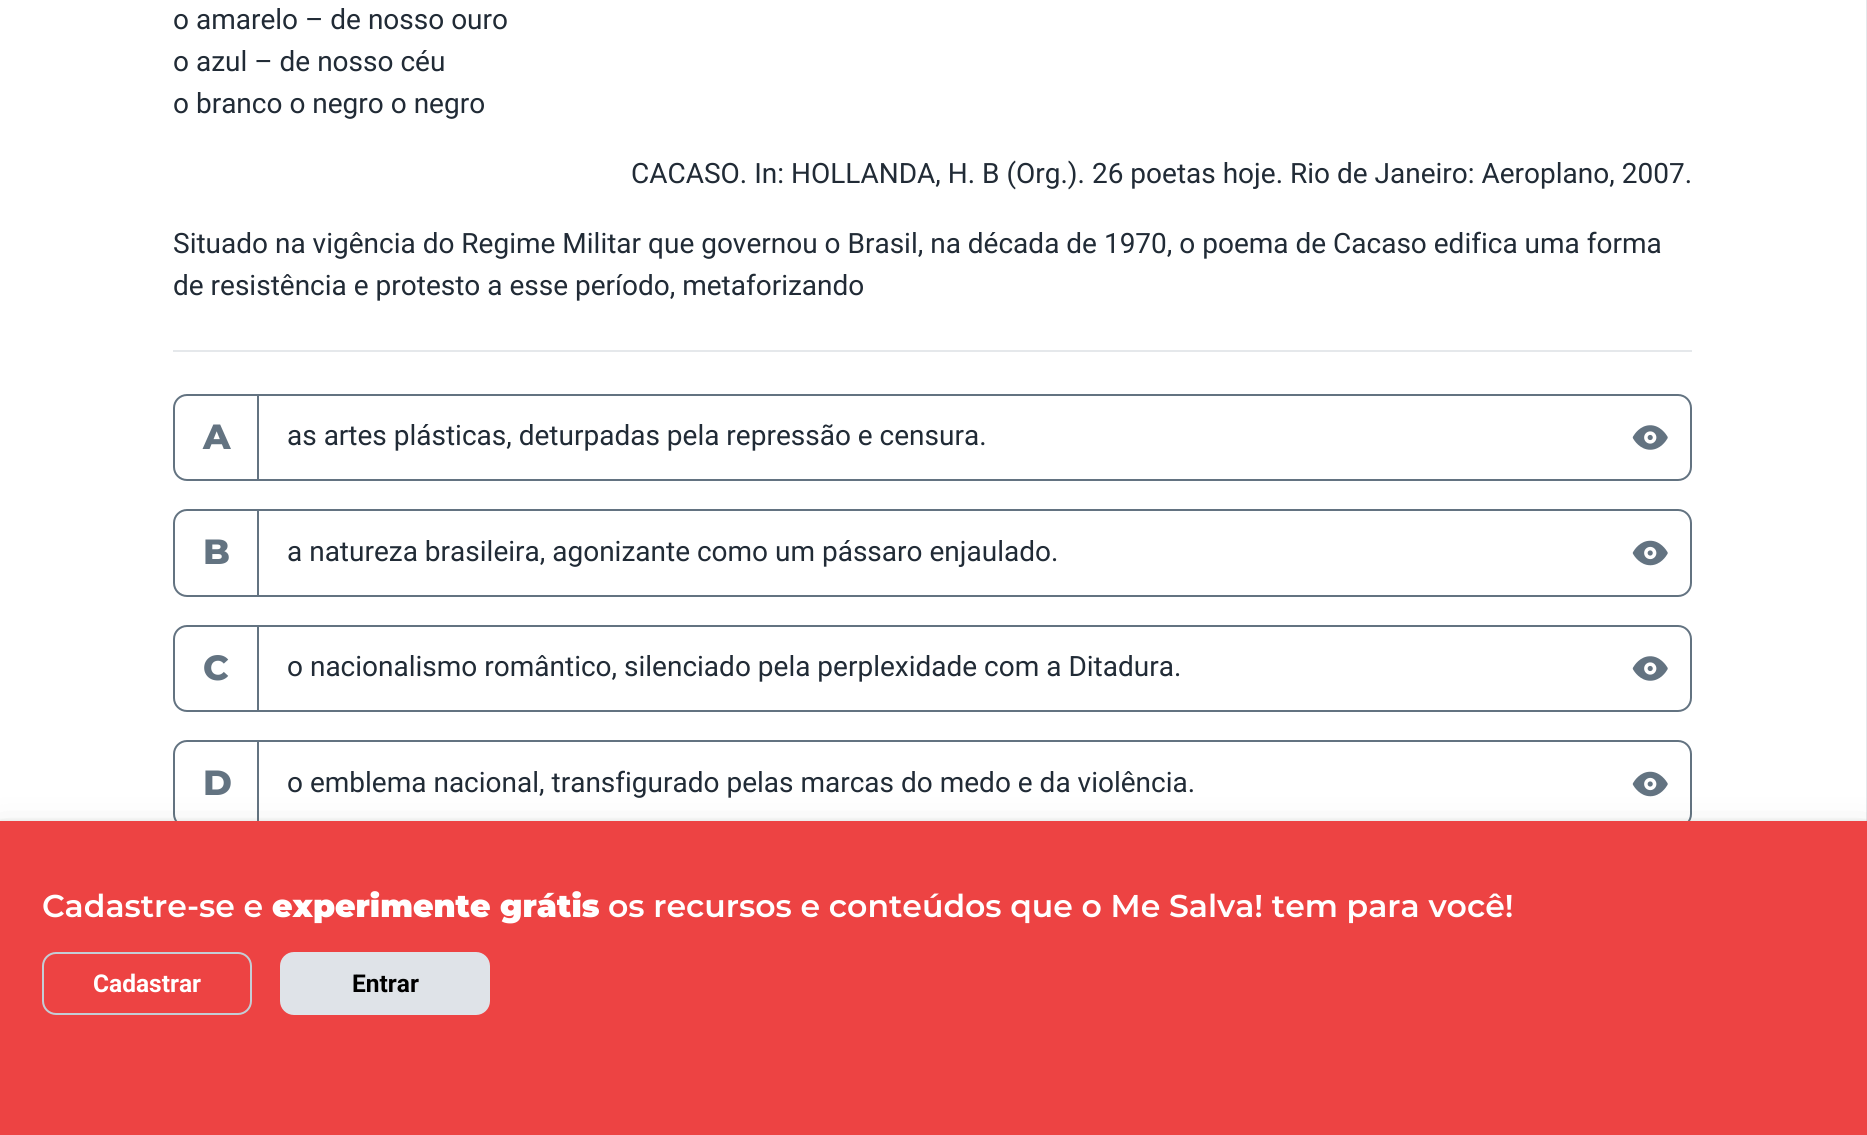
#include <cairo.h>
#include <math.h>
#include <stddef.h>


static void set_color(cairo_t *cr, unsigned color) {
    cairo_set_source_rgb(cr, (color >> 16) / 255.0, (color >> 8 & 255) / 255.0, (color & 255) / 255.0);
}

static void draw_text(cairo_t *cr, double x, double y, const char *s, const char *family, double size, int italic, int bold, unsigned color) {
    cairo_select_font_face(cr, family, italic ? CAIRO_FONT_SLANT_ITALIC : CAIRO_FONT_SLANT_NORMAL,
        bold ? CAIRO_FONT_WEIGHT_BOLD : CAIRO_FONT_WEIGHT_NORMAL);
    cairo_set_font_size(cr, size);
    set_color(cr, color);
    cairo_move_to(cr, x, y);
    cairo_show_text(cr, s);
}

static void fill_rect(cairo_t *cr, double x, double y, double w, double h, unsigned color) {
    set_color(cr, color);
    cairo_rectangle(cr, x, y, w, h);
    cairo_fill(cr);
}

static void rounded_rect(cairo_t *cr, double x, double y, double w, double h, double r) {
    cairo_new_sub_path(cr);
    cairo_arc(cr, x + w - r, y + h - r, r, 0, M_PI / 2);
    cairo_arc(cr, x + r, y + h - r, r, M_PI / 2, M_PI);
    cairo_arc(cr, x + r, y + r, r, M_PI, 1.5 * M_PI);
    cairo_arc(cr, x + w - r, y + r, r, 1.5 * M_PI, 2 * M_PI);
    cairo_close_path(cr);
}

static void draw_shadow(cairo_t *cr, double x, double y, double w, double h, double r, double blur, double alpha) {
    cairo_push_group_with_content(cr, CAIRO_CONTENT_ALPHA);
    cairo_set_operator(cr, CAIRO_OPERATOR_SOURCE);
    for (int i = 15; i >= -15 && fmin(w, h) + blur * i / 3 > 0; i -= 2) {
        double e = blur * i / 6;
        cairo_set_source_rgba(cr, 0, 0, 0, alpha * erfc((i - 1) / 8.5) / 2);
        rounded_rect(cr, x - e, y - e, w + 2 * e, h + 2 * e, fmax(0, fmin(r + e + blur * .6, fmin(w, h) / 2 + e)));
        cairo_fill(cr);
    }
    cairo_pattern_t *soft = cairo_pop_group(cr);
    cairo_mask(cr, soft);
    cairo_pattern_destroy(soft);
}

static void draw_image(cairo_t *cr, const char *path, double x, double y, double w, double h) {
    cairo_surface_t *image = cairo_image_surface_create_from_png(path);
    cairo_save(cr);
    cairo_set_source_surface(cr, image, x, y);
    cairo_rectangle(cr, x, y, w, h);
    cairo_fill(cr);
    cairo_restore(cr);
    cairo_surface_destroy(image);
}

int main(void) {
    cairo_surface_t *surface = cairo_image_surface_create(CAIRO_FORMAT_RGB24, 1867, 1135);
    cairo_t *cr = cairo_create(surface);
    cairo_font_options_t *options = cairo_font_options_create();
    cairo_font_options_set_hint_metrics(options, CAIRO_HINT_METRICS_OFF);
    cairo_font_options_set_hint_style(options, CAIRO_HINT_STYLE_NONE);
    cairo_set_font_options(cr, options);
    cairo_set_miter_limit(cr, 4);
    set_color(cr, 0xFFFFFF);
    cairo_paint(cr);
    fill_rect(cr, 1866, 0, 1, 821, 0xE5E8EB);
    draw_text(cr, 173, 29, "o amarelo – de nosso ouro", "Roboto", 28, 0, 0, 0x212B36);
    draw_text(cr, 173, 71, "o azul – de nosso céu", "Roboto", 28, 0, 0, 0x212B36);
    draw_text(cr, 173, 113, "o branco o negro o negro", "Roboto", 28, 0, 0, 0x212B36);
    draw_text(cr, 631, 183, "CACASO. In: HOLLANDA, H. B (Org.). 26 poetas hoje. Rio de Janeiro: Aeroplano, 2007.", "Roboto", 28, 0, 0, 0x212B36);
    draw_text(cr, 173, 253, "Situado na vigência do Regime Militar que governou o Brasil, na década de 1970, o poema de Cacaso edifica uma forma", "Roboto", 28, 0, 0, 0x212B36);
    draw_text(cr, 173, 295, "de resistência e protesto a esse período, metaforizando", "Roboto", 28, 0, 0, 0x212B36);
    fill_rect(cr, 173, 350, 1519, 2, 0xE5E8EB);
    rounded_rect(cr, 174, 395, 1517, 85, 13);
    set_color(cr, 0x637381);
    cairo_stroke(cr);
    fill_rect(cr, 257, 396, 2, 84, 0x637381);
    draw_text(cr, 203, 449, "A", "Montserrat ExtraBold", 35, 0, 0, 0x637381);
    draw_text(cr, 287, 445, "as artes plásticas, deturpadas pela repressão e censura.", "Roboto", 28, 0, 0, 0x212B36);
    draw_image(cr, "assets/img1.png", 1632, 425, 36, 25);
    rounded_rect(cr, 174, 510, 1517, 86, 13);
    set_color(cr, 0x637381);
    cairo_stroke(cr);
    fill_rect(cr, 257, 511, 2, 84, 0x637381);
    draw_text(cr, 203, 564, "B", "Montserrat ExtraBold", 35, 0, 0, 0x637381);
    draw_text(cr, 287, 561, "a natureza brasileira, agonizante como um pássaro enjaulado.", "Roboto", 28, 0, 0, 0x212B36);
    draw_image(cr, "assets/img2.png", 1632, 540, 36, 26);
    rounded_rect(cr, 174, 626, 1517, 85, 13);
    set_color(cr, 0x637381);
    cairo_stroke(cr);
    fill_rect(cr, 257, 627, 2, 84, 0x637381);
    draw_text(cr, 203, 680, "C", "Montserrat ExtraBold", 35, 0, 0, 0x637381);
    draw_text(cr, 287, 676, "o nacionalismo romântico, silenciado pela perplexidade com a Ditadura.", "Roboto", 28, 0, 0, 0x212B36);
    draw_image(cr, "assets/img1.png", 1632, 656, 36, 25);
    rounded_rect(cr, 174, 741, 1517, 86, 13);
    set_color(cr, 0x637381);
    cairo_stroke(cr);
    fill_rect(cr, 257, 742, 2, 84, 0x637381);
    draw_text(cr, 203, 795, "D", "Montserrat ExtraBold", 35, 0, 0, 0x637381);
    draw_text(cr, 287, 792, "o emblema nacional, transfigurado pelas marcas do medo e da violência.", "Roboto", 28, 0, 0, 0x212B36);
    draw_image(cr, "assets/img2.png", 1632, 771, 36, 26);
    set_color(cr, 0x000000);
    draw_shadow(cr, 0, 842, 1867, 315, 0, 21, 0.24);
    set_color(cr, 0x929F8E);
    draw_shadow(cr, 0, 821, 1867, 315, 0, 2, 0.24);
    fill_rect(cr, 0, 821, 1867, 314, 0xED4343);
    draw_text(cr, 42, 917, "Cadastre-se e", "Montserrat SemiBold", 31.5, 0, 0, 0xFFFFFF);
    draw_text(cr, 272, 917, "experimente grátis", "Montserrat Black", 31.5, 0, 0, 0xFFFFFF);
    draw_text(cr, 608, 917, "os recursos e conteúdos que o Me Salva! tem para você!", "Montserrat SemiBold", 31.5, 0, 0, 0xFFFFFF);
    rounded_rect(cr, 43, 953, 208, 61, 13);
    set_color(cr, 0xC4CDD5);
    cairo_stroke(cr);
    draw_text(cr, 93, 992, "Cadastrar", "Roboto", 24.5, 0, 1, 0xFFFFFF);
    set_color(cr, 0xDFE3E8);
    rounded_rect(cr, 280, 952, 210, 63, 14);
    cairo_fill(cr);
    draw_text(cr, 352, 992, "Entrar", "Roboto", 24.5, 0, 1, 0x000000);
    cairo_surface_write_to_png(surface, "output.png");
    cairo_font_options_destroy(options);
    cairo_destroy(cr);
    cairo_surface_destroy(surface);
    return 0;
}
